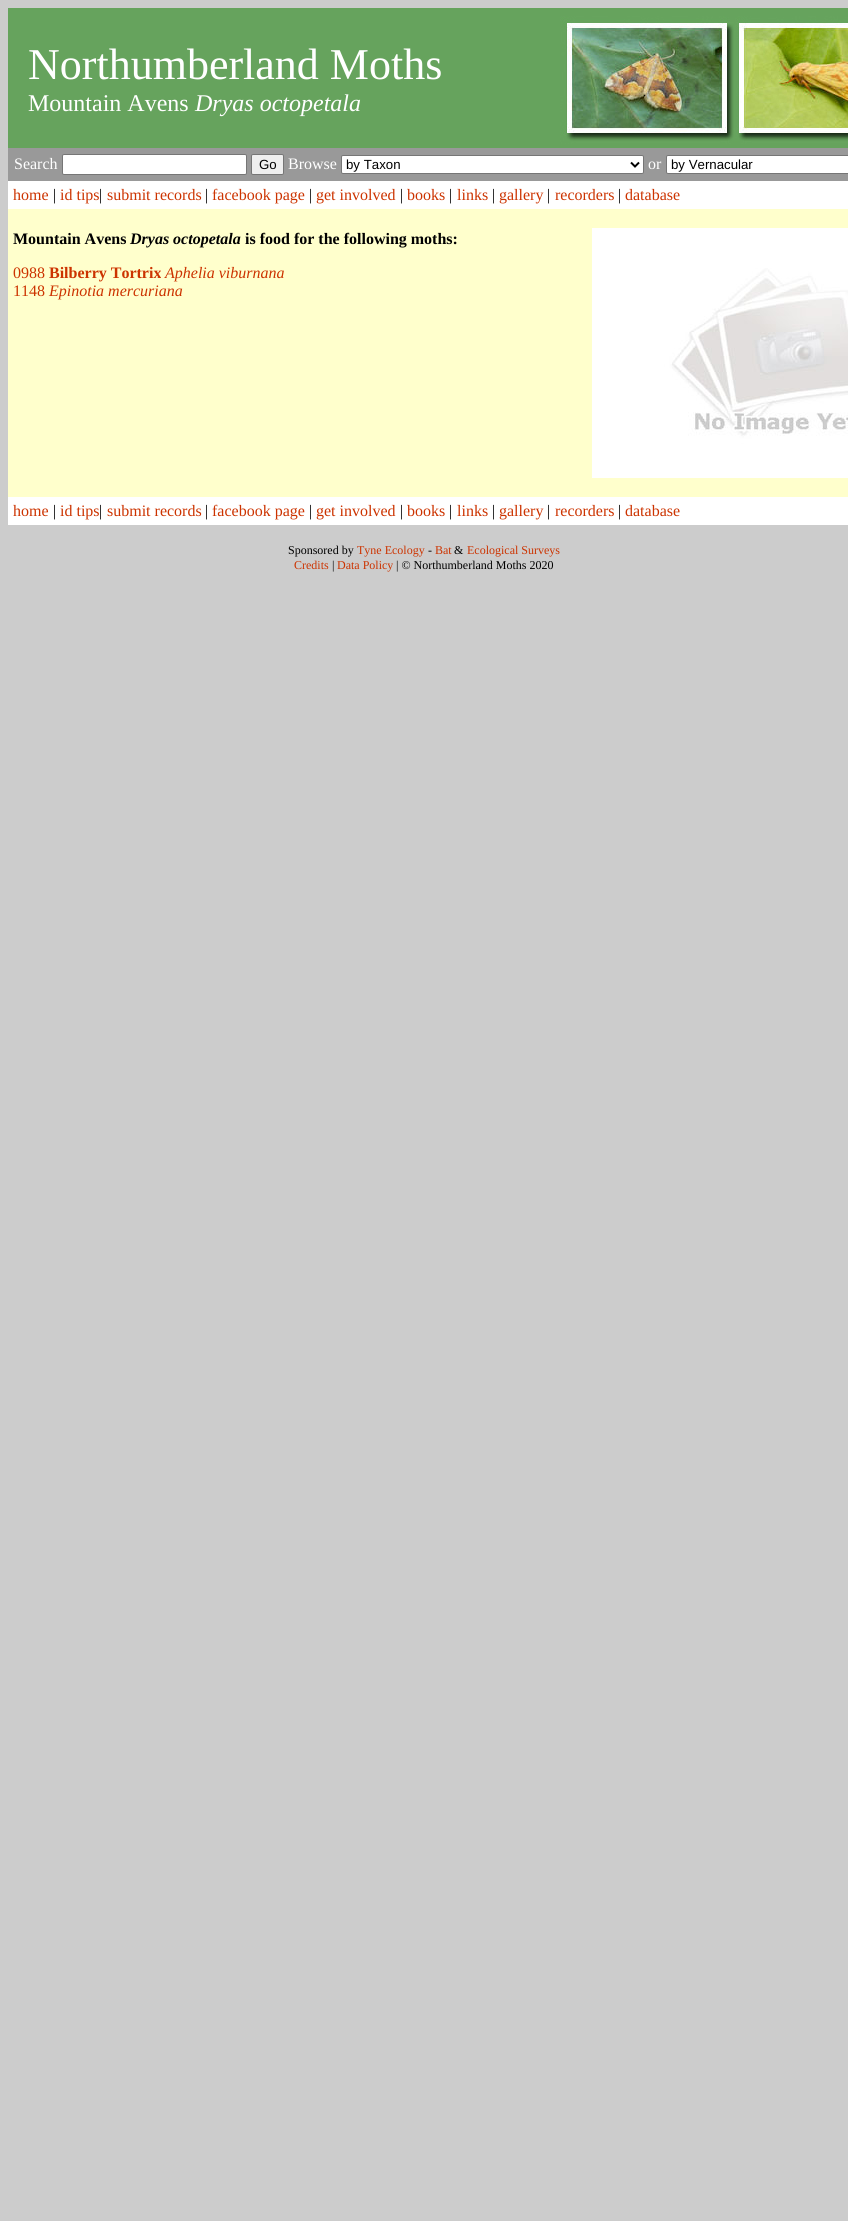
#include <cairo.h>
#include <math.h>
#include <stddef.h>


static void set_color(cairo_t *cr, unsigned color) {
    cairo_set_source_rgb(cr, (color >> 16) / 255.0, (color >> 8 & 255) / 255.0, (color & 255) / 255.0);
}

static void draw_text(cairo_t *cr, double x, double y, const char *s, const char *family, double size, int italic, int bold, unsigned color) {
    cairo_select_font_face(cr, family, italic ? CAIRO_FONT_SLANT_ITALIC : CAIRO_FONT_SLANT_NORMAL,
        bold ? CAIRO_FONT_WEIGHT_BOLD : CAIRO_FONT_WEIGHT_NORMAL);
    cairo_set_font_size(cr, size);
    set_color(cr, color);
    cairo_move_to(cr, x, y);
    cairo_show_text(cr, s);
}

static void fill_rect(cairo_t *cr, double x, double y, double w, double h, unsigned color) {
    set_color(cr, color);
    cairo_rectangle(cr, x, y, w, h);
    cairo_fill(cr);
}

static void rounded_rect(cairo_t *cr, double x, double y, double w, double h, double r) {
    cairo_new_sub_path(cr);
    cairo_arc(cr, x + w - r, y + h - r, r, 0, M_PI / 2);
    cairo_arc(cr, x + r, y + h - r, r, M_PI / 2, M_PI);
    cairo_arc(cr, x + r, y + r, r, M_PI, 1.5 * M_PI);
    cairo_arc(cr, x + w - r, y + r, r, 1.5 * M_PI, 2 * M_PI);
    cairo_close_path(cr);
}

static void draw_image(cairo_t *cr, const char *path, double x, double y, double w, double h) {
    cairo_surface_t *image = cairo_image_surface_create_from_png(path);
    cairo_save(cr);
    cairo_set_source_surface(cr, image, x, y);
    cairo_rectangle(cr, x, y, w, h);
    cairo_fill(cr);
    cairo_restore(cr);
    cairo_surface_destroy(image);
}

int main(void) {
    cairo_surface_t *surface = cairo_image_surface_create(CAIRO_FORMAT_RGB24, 848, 2221);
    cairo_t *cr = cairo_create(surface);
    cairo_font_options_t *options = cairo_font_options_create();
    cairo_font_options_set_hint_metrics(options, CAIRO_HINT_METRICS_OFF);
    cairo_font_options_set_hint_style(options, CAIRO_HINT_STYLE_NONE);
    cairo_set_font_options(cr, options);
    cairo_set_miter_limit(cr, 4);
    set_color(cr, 0xCCCCCC);
    cairo_paint(cr);
    draw_image(cr, "assets/img1.png", 8, 8, 840, 140);
    draw_text(cr, 28, 79, "Northumberland Moths", "Liberation Serif", 44, 0, 0, 0xFFFFFF);
    draw_text(cr, 28, 111, "Mountain Avens", "Liberation Serif", 24, 0, 0, 0xFFFFFF);
    draw_text(cr, 195, 111, "Dryas octopetala", "Liberation Serif", 24, 1, 0, 0xFFFFFF);
    fill_rect(cr, 8, 148, 840, 33, 0x999999);
    draw_text(cr, 14, 169, "Search", "Liberation Serif", 16, 0, 0, 0xFFFFFF);
    rounded_rect(cr, 62.5, 154.5, 184, 20, 1.5);
    cairo_fill_preserve(cr);
    set_color(cr, 0x767676);
    cairo_set_line_width(cr, 1);
    cairo_stroke(cr);
    set_color(cr, 0xEFEFEF);
    rounded_rect(cr, 251.5, 154.5, 32, 20, 1.5);
    cairo_fill_preserve(cr);
    set_color(cr, 0x767676);
    cairo_stroke(cr);
    draw_text(cr, 259, 169, "Go", "Liberation Sans", 13.25, 0, 0, 0x000000);
    draw_text(cr, 288, 169, "Browse", "Liberation Serif", 16, 0, 0, 0xFFFFFF);
    rounded_rect(cr, 341.5, 155.5, 302, 18, 1.5);
    cairo_fill_preserve(cr);
    set_color(cr, 0x767676);
    cairo_stroke(cr);
    cairo_new_path(cr);
    cairo_move_to(cr, 631, 162.5);
    cairo_line_to(cr, 635, 166.5);
    cairo_line_to(cr, 639, 162.5);
    set_color(cr, 0x000000);
    cairo_set_line_width(cr, 2);
    cairo_stroke(cr);
    draw_text(cr, 346, 169, "by Taxon", "Liberation Sans", 13.25, 0, 0, 0x000000);
    draw_text(cr, 648, 169, "or", "Liberation Serif", 16, 0, 0, 0xFFFFFF);
    rounded_rect(cr, 666.5, 155.5, 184, 18, 1.5);
    cairo_fill_preserve(cr);
    set_color(cr, 0x767676);
    cairo_set_line_width(cr, 1);
    cairo_stroke(cr);
    draw_text(cr, 671, 169, "by Vernacular", "Liberation Sans", 13.25, 0, 0, 0x000000);
    fill_rect(cr, 8, 181, 840, 28, 0xFFFFFF);
    draw_text(cr, 13, 200, "home", "Liberation Serif", 16, 0, 0, 0xCC3300);
    draw_text(cr, 53, 200, "|", "Liberation Serif", 16, 0, 0, 0x000000);
    draw_text(cr, 60, 200, "id tips", "Liberation Serif", 16, 0, 0, 0xCC3300);
    draw_text(cr, 99, 200, "|", "Liberation Serif", 16, 0, 0, 0x000000);
    draw_text(cr, 107, 200, "submit records", "Liberation Serif", 16, 0, 0, 0xCC3300);
    draw_text(cr, 205, 200, "|", "Liberation Serif", 16, 0, 0, 0x000000);
    draw_text(cr, 212, 200, "facebook page", "Liberation Serif", 16, 0, 0, 0xCC3300);
    draw_text(cr, 309, 200, "|", "Liberation Serif", 16, 0, 0, 0x000000);
    draw_text(cr, 316, 200, "get involved", "Liberation Serif", 16, 0, 0, 0xCC3300);
    draw_text(cr, 400, 200, "|", "Liberation Serif", 16, 0, 0, 0x000000);
    draw_text(cr, 407, 200, "books", "Liberation Serif", 16, 0, 0, 0xCC3300);
    draw_text(cr, 449, 200, "|", "Liberation Serif", 16, 0, 0, 0x000000);
    draw_text(cr, 457, 200, "links", "Liberation Serif", 16, 0, 0, 0xCC3300);
    draw_text(cr, 492, 200, "|", "Liberation Serif", 16, 0, 0, 0x000000);
    draw_text(cr, 499, 200, "gallery", "Liberation Serif", 16, 0, 0, 0xCC3300);
    draw_text(cr, 547, 200, "|", "Liberation Serif", 16, 0, 0, 0x000000);
    draw_text(cr, 555, 200, "recorders", "Liberation Serif", 16, 0, 0, 0xCC3300);
    draw_text(cr, 618, 200, "|", "Liberation Serif", 16, 0, 0, 0x000000);
    draw_text(cr, 625, 200, "database", "Liberation Serif", 16, 0, 0, 0xCC3300);
    fill_rect(cr, 8, 209, 840, 288, 0xFFFFCC);
    draw_text(cr, 13, 244, "Mountain Avens", "Liberation Serif", 16, 0, 1, 0x000000);
    draw_text(cr, 130, 244, "Dryas octopetala", "Liberation Serif", 16, 1, 1, 0x000000);
    draw_text(cr, 245, 244, "is food for the following moths:", "Liberation Serif", 16, 0, 1, 0x000000);
    draw_text(cr, 13, 278, "0988", "Liberation Serif", 16, 0, 0, 0xCC3300);
    draw_text(cr, 49, 278, "Bilberry Tortrix", "Liberation Serif", 16, 0, 1, 0xCC3300);
    draw_text(cr, 165, 278, "Aphelia viburnana", "Liberation Serif", 16, 1, 0, 0xCC3300);
    draw_text(cr, 13, 296, "1148", "Liberation Serif", 16, 0, 0, 0xCC3300);
    draw_text(cr, 49, 296, "Epinotia mercuriana", "Liberation Serif", 16, 1, 0, 0xCC3300);
    draw_image(cr, "assets/img2.png", 592, 228, 256, 250);
    fill_rect(cr, 8, 497, 840, 28, 0xFFFFFF);
    draw_text(cr, 13, 516, "home", "Liberation Serif", 16, 0, 0, 0xCC3300);
    draw_text(cr, 53, 516, "|", "Liberation Serif", 16, 0, 0, 0x000000);
    draw_text(cr, 60, 516, "id tips", "Liberation Serif", 16, 0, 0, 0xCC3300);
    draw_text(cr, 99, 516, "|", "Liberation Serif", 16, 0, 0, 0x000000);
    draw_text(cr, 107, 516, "submit records", "Liberation Serif", 16, 0, 0, 0xCC3300);
    draw_text(cr, 205, 516, "|", "Liberation Serif", 16, 0, 0, 0x000000);
    draw_text(cr, 212, 516, "facebook page", "Liberation Serif", 16, 0, 0, 0xCC3300);
    draw_text(cr, 309, 516, "|", "Liberation Serif", 16, 0, 0, 0x000000);
    draw_text(cr, 316, 516, "get involved", "Liberation Serif", 16, 0, 0, 0xCC3300);
    draw_text(cr, 400, 516, "|", "Liberation Serif", 16, 0, 0, 0x000000);
    draw_text(cr, 407, 516, "books", "Liberation Serif", 16, 0, 0, 0xCC3300);
    draw_text(cr, 449, 516, "|", "Liberation Serif", 16, 0, 0, 0x000000);
    draw_text(cr, 457, 516, "links", "Liberation Serif", 16, 0, 0, 0xCC3300);
    draw_text(cr, 492, 516, "|", "Liberation Serif", 16, 0, 0, 0x000000);
    draw_text(cr, 499, 516, "gallery", "Liberation Serif", 16, 0, 0, 0xCC3300);
    draw_text(cr, 547, 516, "|", "Liberation Serif", 16, 0, 0, 0x000000);
    draw_text(cr, 555, 516, "recorders", "Liberation Serif", 16, 0, 0, 0xCC3300);
    draw_text(cr, 618, 516, "|", "Liberation Serif", 16, 0, 0, 0x000000);
    draw_text(cr, 625, 516, "database", "Liberation Serif", 16, 0, 0, 0xCC3300);
    draw_text(cr, 288, 554, "Sponsored by", "Liberation Serif", 12, 0, 0, 0x000000);
    draw_text(cr, 357, 554, "Tyne Ecology", "Liberation Serif", 12, 0, 0, 0xCC3300);
    draw_text(cr, 428, 554, "-", "Liberation Serif", 12, 0, 0, 0x000000);
    draw_text(cr, 435, 554, "Bat", "Liberation Serif", 12, 0, 0, 0xCC3300);
    draw_text(cr, 454, 554, "&", "Liberation Serif", 12, 0, 0, 0x000000);
    draw_text(cr, 467, 554, "Ecological Surveys", "Liberation Serif", 12, 0, 0, 0xCC3300);
    draw_text(cr, 294, 569, "Credits", "Liberation Serif", 12, 0, 0, 0xCC3300);
    draw_text(cr, 332, 569, "|", "Liberation Serif", 12, 0, 0, 0x000000);
    draw_text(cr, 337, 569, "Data Policy", "Liberation Serif", 12, 0, 0, 0xCC3300);
    draw_text(cr, 396, 569, "| © Northumberland Moths 2020", "Liberation Serif", 12, 0, 0, 0x000000);
    cairo_surface_write_to_png(surface, "output.png");
    cairo_font_options_destroy(options);
    cairo_destroy(cr);
    cairo_surface_destroy(surface);
    return 0;
}
